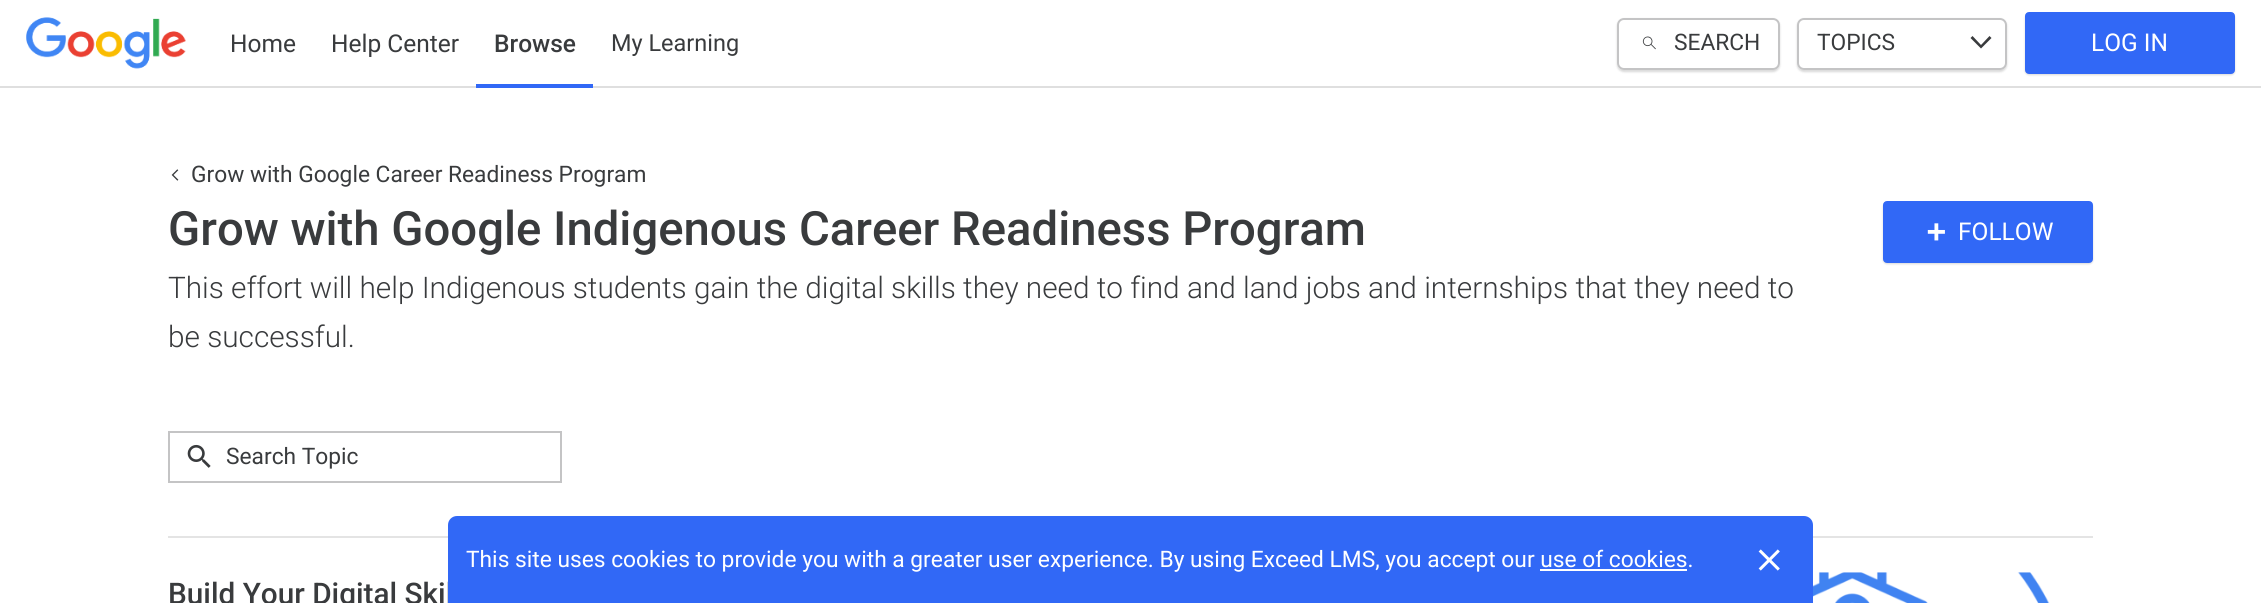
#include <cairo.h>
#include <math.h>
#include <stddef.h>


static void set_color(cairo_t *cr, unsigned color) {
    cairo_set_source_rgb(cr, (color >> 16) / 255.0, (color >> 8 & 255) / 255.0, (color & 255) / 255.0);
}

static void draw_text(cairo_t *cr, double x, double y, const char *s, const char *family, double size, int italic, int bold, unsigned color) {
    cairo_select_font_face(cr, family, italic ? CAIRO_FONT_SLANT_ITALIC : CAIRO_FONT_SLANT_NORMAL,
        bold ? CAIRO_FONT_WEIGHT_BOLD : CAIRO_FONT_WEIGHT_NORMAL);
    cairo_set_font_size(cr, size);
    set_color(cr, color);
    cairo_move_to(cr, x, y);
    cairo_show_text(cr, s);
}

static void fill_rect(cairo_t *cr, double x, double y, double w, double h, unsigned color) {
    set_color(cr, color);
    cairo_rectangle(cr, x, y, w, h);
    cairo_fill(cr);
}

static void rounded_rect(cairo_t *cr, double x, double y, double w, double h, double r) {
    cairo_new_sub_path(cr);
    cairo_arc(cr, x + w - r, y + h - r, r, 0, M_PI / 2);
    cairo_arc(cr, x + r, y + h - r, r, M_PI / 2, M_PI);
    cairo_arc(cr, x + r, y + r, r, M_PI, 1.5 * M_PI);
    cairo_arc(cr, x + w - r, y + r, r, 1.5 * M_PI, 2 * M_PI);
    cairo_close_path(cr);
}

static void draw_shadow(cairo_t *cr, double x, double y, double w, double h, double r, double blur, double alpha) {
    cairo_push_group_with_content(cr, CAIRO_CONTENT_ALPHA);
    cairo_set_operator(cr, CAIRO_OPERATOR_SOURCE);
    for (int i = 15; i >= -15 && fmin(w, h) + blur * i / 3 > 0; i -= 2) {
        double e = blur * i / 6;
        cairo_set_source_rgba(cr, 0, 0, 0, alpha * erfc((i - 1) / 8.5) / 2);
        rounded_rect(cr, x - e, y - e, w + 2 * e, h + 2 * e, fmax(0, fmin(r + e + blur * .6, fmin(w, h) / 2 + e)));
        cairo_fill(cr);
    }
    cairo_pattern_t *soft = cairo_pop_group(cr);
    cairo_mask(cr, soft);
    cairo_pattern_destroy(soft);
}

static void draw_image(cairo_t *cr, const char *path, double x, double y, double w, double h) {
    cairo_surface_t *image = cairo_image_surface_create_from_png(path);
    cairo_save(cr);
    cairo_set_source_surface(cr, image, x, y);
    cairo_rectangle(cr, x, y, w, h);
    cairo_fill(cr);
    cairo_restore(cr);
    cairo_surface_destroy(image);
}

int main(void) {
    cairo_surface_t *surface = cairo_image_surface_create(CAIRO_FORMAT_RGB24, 2261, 603);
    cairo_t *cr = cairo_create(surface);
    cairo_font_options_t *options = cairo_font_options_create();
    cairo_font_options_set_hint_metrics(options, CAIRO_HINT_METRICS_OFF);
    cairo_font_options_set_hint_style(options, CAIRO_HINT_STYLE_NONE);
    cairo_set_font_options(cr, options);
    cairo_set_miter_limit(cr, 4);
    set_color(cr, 0xFFFFFF);
    cairo_paint(cr);
    fill_rect(cr, 0, 86, 2261, 2, 0xDFDFDF);
    draw_image(cr, "assets/img1.png", 26, 17, 160, 52);
    draw_text(cr, 230, 52, "Home", "Roboto", 24.5, 0, 0, 0x393B3D);
    draw_text(cr, 331, 52, "Help Center", "Roboto", 24.5, 0, 0, 0x393B3D);
    fill_rect(cr, 476, 84, 117, 4, 0x3168F6);
    draw_text(cr, 494, 52, "Browse", "Roboto Medium", 24.5, 0, 0, 0x393B3D);
    draw_text(cr, 611, 51, "My Learning", "Roboto", 23.5, 0, 0, 0x393B3D);
    cairo_save(cr);
    cairo_set_fill_rule(cr, CAIRO_FILL_RULE_EVEN_ODD);
    cairo_new_path(cr);
    cairo_move_to(cr, 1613, 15);
    cairo_line_to(cr, 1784, 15);
    cairo_line_to(cr, 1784, 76);
    cairo_line_to(cr, 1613, 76);
    cairo_close_path(cr);
    cairo_move_to(cr, 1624, 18);
    cairo_line_to(cr, 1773, 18);
    cairo_curve_to(cr, 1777, 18, 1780, 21, 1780, 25);
    cairo_line_to(cr, 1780, 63);
    cairo_curve_to(cr, 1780, 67, 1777, 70, 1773, 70);
    cairo_line_to(cr, 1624, 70);
    cairo_curve_to(cr, 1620, 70, 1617, 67, 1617, 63);
    cairo_line_to(cr, 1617, 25);
    cairo_curve_to(cr, 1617, 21, 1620, 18, 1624, 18);
    cairo_close_path(cr);
    cairo_clip(cr);
    set_color(cr, 0x000000);
    draw_shadow(cr, 1617, 19, 163, 53, 7, 1, 0.15);
    cairo_restore(cr);
    rounded_rect(cr, 1618, 19, 161, 50, 6);
    cairo_set_source_rgba(cr, 0.224, 0.231, 0.239, 0.3);
    cairo_stroke(cr);
    draw_image(cr, "assets/img2.png", 1642, 36, 14, 14);
    draw_text(cr, 1674, 50, "SEARCH", "Roboto", 22.75, 0, 0, 0x393B3D);
    cairo_save(cr);
    cairo_set_fill_rule(cr, CAIRO_FILL_RULE_EVEN_ODD);
    cairo_new_path(cr);
    cairo_move_to(cr, 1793, 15);
    cairo_line_to(cr, 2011, 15);
    cairo_line_to(cr, 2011, 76);
    cairo_line_to(cr, 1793, 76);
    cairo_close_path(cr);
    cairo_move_to(cr, 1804, 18);
    cairo_line_to(cr, 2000, 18);
    cairo_curve_to(cr, 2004, 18, 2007, 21, 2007, 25);
    cairo_line_to(cr, 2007, 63);
    cairo_curve_to(cr, 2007, 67, 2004, 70, 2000, 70);
    cairo_line_to(cr, 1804, 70);
    cairo_curve_to(cr, 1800, 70, 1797, 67, 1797, 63);
    cairo_line_to(cr, 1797, 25);
    cairo_curve_to(cr, 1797, 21, 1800, 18, 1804, 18);
    cairo_close_path(cr);
    cairo_clip(cr);
    set_color(cr, 0x000000);
    draw_shadow(cr, 1797, 19, 210, 53, 7, 1, 0.15);
    cairo_restore(cr);
    rounded_rect(cr, 1798, 19, 208, 50, 6);
    cairo_set_source_rgba(cr, 0.224, 0.231, 0.239, 0.3);
    cairo_stroke(cr);
    draw_text(cr, 1817, 50, "TOPICS", "Roboto", 22.75, 0, 0, 0x393B3D);
    cairo_new_path(cr);
    cairo_move_to(cr, 1972.5, 36);
    cairo_line_to(cr, 1981, 45);
    cairo_line_to(cr, 1989.5, 36);
    cairo_line_to(cr, 1991.5, 38);
    cairo_line_to(cr, 1981, 48.5);
    cairo_line_to(cr, 1970.5, 38);
    cairo_close_path(cr);
    cairo_fill(cr);
    set_color(cr, 0x000000);
    draw_shadow(cr, 2025, 14, 210, 61, 4, 1, 0.15);
    set_color(cr, 0x3168F6);
    rounded_rect(cr, 2026, 13, 208, 60, 3);
    cairo_fill_preserve(cr);
    cairo_stroke(cr);
    draw_text(cr, 2091, 51, "LOG IN", "Roboto", 24.5, 0, 0, 0xFFFFFF);
    draw_image(cr, "assets/img3.png", 171, 169, 8, 12);
    draw_text(cr, 191, 182, "Grow with Google Career Readiness Program", "Roboto", 22.75, 0, 0, 0x393B3D);
    draw_text(cr, 168, 245, "Grow with Google Indigenous Career Readiness Program", "Roboto Medium", 47.25, 0, 0, 0x393B3D);
    draw_text(cr, 168, 298, "This effort will help Indigenous students gain the digital skills they need to find and land jobs and internships that they need to", "Roboto Light", 29.75, 0, 0, 0x393B3D);
    draw_text(cr, 168, 347, "be successful.", "Roboto Light", 29.75, 0, 0, 0x393B3D);
    set_color(cr, 0x000000);
    draw_shadow(cr, 1883, 203, 210, 61, 4, 1, 0.15);
    set_color(cr, 0x3168F6);
    rounded_rect(cr, 1884, 202, 208, 60, 3);
    cairo_fill_preserve(cr);
    cairo_stroke(cr);
    draw_image(cr, "assets/img4.png", 1927, 223, 18, 18);
    draw_text(cr, 1958, 240, "FOLLOW", "Roboto", 24.5, 0, 0, 0xFFFFFF);
    cairo_rectangle(cr, 169, 432, 392, 50);
    set_color(cr, 0xC4C4C5);
    cairo_stroke(cr);
    draw_image(cr, "assets/img5.png", 187, 444, 24, 24);
    draw_text(cr, 226, 464, "Search Topic", "Roboto", 22.75, 0, 0, 0x393B3D);
    fill_rect(cr, 168, 536, 1925, 2, 0xE4E4E4);
    draw_text(cr, 168, 604, "Build Your Digital Skil", "Roboto Medium", 29.75, 0, 0, 0x393B3D);
    draw_image(cr, "assets/img6.png", 1813, 572, 237, 31);
    set_color(cr, 0x3168F6);
    cairo_new_path(cr);
    cairo_move_to(cr, 457, 516);
    cairo_line_to(cr, 1804, 516);
    cairo_curve_to(cr, 1809, 516, 1813, 520, 1813, 525);
    cairo_line_to(cr, 1813, 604);
    cairo_line_to(cr, 448, 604);
    cairo_line_to(cr, 448, 525);
    cairo_curve_to(cr, 448, 520, 452, 516, 457, 516);
    cairo_close_path(cr);
    cairo_fill(cr);
    draw_text(cr, 466, 567, "This site uses cookies to provide you with a greater user experience. By using Exceed LMS, you accept our use of cookies.", "Roboto", 22.75, 0, 0, 0xFFFFFF);
    fill_rect(cr, 1540, 569, 147, 2, 0xFFFFFF);
    draw_image(cr, "assets/img7.png", 1758, 549, 22, 22);
    cairo_surface_write_to_png(surface, "output.png");
    cairo_font_options_destroy(options);
    cairo_destroy(cr);
    cairo_surface_destroy(surface);
    return 0;
}
